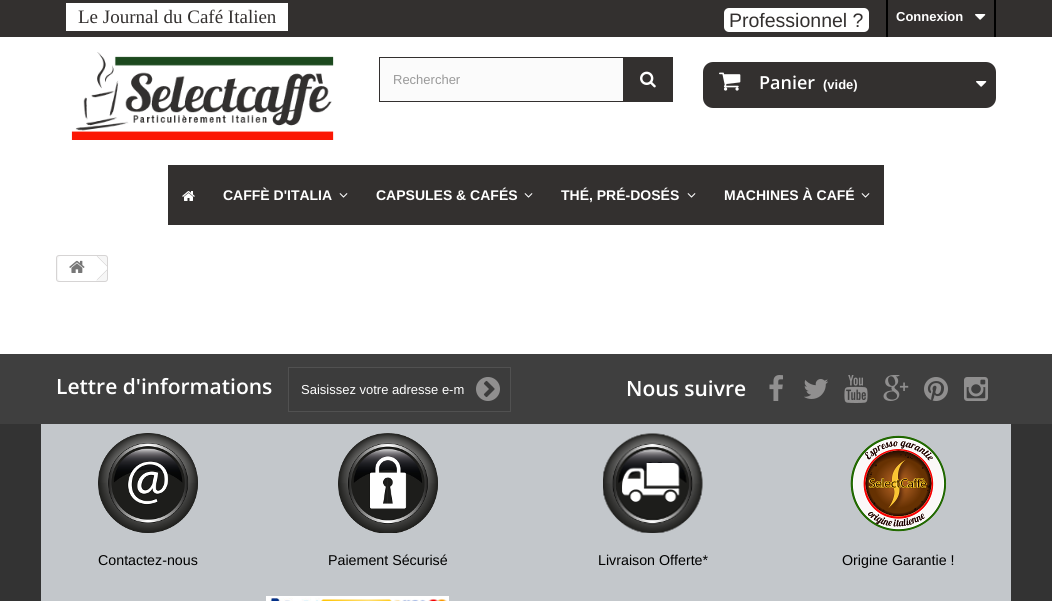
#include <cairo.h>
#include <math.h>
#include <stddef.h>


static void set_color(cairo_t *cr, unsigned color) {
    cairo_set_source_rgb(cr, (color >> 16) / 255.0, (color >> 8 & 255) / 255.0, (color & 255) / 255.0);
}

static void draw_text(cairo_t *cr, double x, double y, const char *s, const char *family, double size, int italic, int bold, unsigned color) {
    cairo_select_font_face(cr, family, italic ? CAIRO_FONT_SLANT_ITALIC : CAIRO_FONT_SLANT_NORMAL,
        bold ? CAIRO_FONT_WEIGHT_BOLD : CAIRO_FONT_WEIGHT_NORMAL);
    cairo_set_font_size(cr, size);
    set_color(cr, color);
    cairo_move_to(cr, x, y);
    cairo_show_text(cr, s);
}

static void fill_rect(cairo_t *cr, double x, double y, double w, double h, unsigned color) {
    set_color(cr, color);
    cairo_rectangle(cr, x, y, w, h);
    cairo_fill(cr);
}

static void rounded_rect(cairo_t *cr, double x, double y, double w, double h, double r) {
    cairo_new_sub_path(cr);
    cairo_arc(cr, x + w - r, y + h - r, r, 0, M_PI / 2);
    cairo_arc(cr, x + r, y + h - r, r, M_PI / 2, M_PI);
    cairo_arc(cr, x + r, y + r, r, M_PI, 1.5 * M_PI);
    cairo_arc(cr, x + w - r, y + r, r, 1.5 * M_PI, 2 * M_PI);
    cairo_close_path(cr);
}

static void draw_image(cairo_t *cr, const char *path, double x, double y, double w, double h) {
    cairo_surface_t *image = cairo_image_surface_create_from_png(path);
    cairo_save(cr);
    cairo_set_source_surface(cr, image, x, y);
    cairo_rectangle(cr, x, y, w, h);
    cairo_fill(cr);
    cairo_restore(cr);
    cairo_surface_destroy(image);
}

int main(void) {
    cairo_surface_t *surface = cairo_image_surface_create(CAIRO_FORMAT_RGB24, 1052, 601);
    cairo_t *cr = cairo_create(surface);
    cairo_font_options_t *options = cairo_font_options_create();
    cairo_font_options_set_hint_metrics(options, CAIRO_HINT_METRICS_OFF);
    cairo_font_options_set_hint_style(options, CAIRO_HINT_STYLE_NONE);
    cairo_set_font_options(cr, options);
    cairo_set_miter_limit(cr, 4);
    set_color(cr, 0xFFFFFF);
    cairo_paint(cr);
    fill_rect(cr, 0, 0, 1052, 37, 0x33302F);
    fill_rect(cr, 66, 3, 222, 28, 0xFFFFFF);
    draw_text(cr, 78, 23, "Le Journal du Café Italien", "Liberation Serif", 19, 0, 0, 0x33302F);
    set_color(cr, 0xFFFFFF);
    rounded_rect(cr, 724, 8, 145, 24, 5);
    cairo_fill(cr);
    draw_text(cr, 729, 27, "Professionnel ?", "Liberation Sans", 19.5, 0, 0, 0x33302F);
    fill_rect(cr, 994, 0, 2, 37, 0x000000);
    fill_rect(cr, 886, 0, 2, 37, 0x000000);
    draw_text(cr, 896, 21, "Connexion", "Liberation Sans", 13, 0, 1, 0xFFFFFF);
    draw_image(cr, "assets/img1.png", 975, 14, 11, 6);
    draw_image(cr, "assets/img2.png", 71, 52, 263, 88);
    fill_rect(cr, 380, 58, 243, 43, 0xFBFBFB);
    cairo_rectangle(cr, 379.5, 57.5, 293, 44);
    set_color(cr, 0x33302F);
    cairo_set_line_width(cr, 1);
    cairo_stroke(cr);
    draw_text(cr, 393, 84, "Rechercher", "Liberation Sans", 13, 0, 0, 0x999999);
    fill_rect(cr, 623, 58, 49, 43, 0x33302F);
    draw_image(cr, "assets/img3.png", 640, 71, 16, 17);
    rounded_rect(cr, 703, 62, 293, 46, 10);
    cairo_fill(cr);
    draw_image(cr, "assets/img4.png", 719, 72, 22, 19);
    draw_text(cr, 759, 89, "Panier", "Open Sans SemiBold", 18, 0, 0, 0xFFFFFF);
    draw_text(cr, 823, 89, "(vide)", "Liberation Sans", 13, 0, 1, 0xFFFFFF);
    draw_image(cr, "assets/img1.png", 976, 81, 11, 6);
    fill_rect(cr, 168, 165, 716, 60, 0x33302F);
    draw_image(cr, "assets/img5.png", 182, 191, 13, 10);
    draw_text(cr, 223, 200, "CAFFÈ D'ITALIA", "Liberation Sans", 14, 0, 1, 0xFFFFFF);
    draw_image(cr, "assets/img6.png", 339, 193, 9, 5);
    draw_text(cr, 376, 200, "CAPSULES & CAFÉS", "Liberation Sans", 14, 0, 1, 0xFFFFFF);
    draw_image(cr, "assets/img6.png", 524, 193, 9, 5);
    draw_text(cr, 561, 200, "THÉ, PRÉ-DOSÉS", "Liberation Sans", 14, 0, 1, 0xFFFFFF);
    draw_image(cr, "assets/img6.png", 687, 193, 9, 5);
    draw_text(cr, 724, 200, "MACHINES À CAFÉ", "Liberation Sans", 14, 0, 1, 0xFFFFFF);
    draw_image(cr, "assets/img6.png", 861, 193, 9, 5);
    set_color(cr, 0xF6F6F6);
    rounded_rect(cr, 56.5, 255.5, 51, 26, 2.5);
    cairo_fill_preserve(cr);
    set_color(cr, 0xD6D4D4);
    cairo_stroke(cr);
    set_color(cr, 0xFFFFFF);
    cairo_new_path(cr);
    cairo_move_to(cr, 61, 256);
    cairo_line_to(cr, 96, 256);
    cairo_line_to(cr, 96, 281);
    cairo_line_to(cr, 61, 281);
    cairo_curve_to(cr, 59.5, 281, 58, 279.5, 58, 278);
    cairo_line_to(cr, 58, 259);
    cairo_curve_to(cr, 58, 257.5, 59.5, 256, 61, 256);
    cairo_close_path(cr);
    cairo_fill(cr);
    draw_image(cr, "assets/img7.png", 69, 260, 16, 13);
    cairo_new_path(cr);
    cairo_move_to(cr, 98.5, 256.5);
    cairo_line_to(cr, 107, 265);
    cairo_line_to(cr, 107, 271);
    cairo_line_to(cr, 98.5, 279.5);
    cairo_curve_to(cr, 97.5, 280, 96.5, 280, 95.5, 279.5);
    cairo_line_to(cr, 85.5, 269.5);
    cairo_curve_to(cr, 85, 268.5, 85, 267.5, 85.5, 266.5);
    cairo_line_to(cr, 95.5, 256.5);
    cairo_curve_to(cr, 96.5, 256, 97.5, 256, 98.5, 256.5);
    cairo_close_path(cr);
    cairo_fill(cr);
    set_color(cr, 0xD6D4D4);
    cairo_new_path(cr);
    cairo_move_to(cr, 97.5, 256);
    cairo_line_to(cr, 107, 265.5);
    cairo_line_to(cr, 107, 266.5);
    cairo_line_to(cr, 97, 256.5);
    cairo_close_path(cr);
    cairo_move_to(cr, 107, 269.5);
    cairo_line_to(cr, 107, 270.5);
    cairo_line_to(cr, 97.5, 280);
    cairo_line_to(cr, 97, 279.5);
    cairo_close_path(cr);
    cairo_fill(cr);
    fill_rect(cr, 0, 424, 1052, 177, 0x333333);
    fill_rect(cr, 0, 354, 1052, 70, 0x3F3F3F);
    draw_text(cr, 56, 394, "Lettre d'informations", "Open Sans SemiBold", 21, 0, 0, 0xFFFFFF);
    set_color(cr, 0x3C3C3C);
    cairo_rectangle(cr, 288.5, 367.5, 222, 44);
    cairo_fill_preserve(cr);
    set_color(cr, 0x515151);
    cairo_stroke(cr);
    draw_text(cr, 301, 394, "Saisissez votre adresse e-m", "Liberation Sans", 13, 0, 0, 0xFFFFFF);
    draw_image(cr, "assets/img8.png", 476, 377, 24, 24);
    draw_text(cr, 626, 396, "Nous suivre", "Open Sans SemiBold", 21, 0, 0, 0xFFFFFF);
    draw_image(cr, "assets/img9.png", 769, 375, 14, 26);
    draw_image(cr, "assets/img10.png", 804, 379, 24, 20);
    draw_image(cr, "assets/img11.png", 844, 375, 24, 28);
    draw_image(cr, "assets/img12.png", 883, 375, 26, 26);
    draw_image(cr, "assets/img13.png", 924, 377, 24, 24);
    draw_image(cr, "assets/img14.png", 964, 377, 24, 24);
    fill_rect(cr, 41, 424, 970, 177, 0xC3C7CB);
    draw_image(cr, "assets/img15.png", 98, 433, 100, 100);
    draw_image(cr, "assets/img16.png", 338, 433, 100, 100);
    draw_image(cr, "assets/img17.png", 603, 433, 100, 100);
    draw_image(cr, "assets/img18.png", 850, 435, 97, 97);
    draw_text(cr, 98, 565, "Contactez-nous", "Liberation Sans", 14.25, 0, 0, 0x000000);
    draw_text(cr, 328, 565, "Paiement Sécurisé", "Liberation Sans", 14.25, 0, 0, 0x000000);
    draw_text(cr, 598, 565, "Livraison Offerte*", "Liberation Sans", 14.25, 0, 0, 0x000000);
    draw_text(cr, 842, 565, "Origine Garantie !", "Liberation Sans", 14.25, 0, 0, 0x000000);
    draw_image(cr, "assets/img19.png", 266, 596, 183, 5);
    cairo_surface_write_to_png(surface, "output.png");
    cairo_font_options_destroy(options);
    cairo_destroy(cr);
    cairo_surface_destroy(surface);
    return 0;
}
